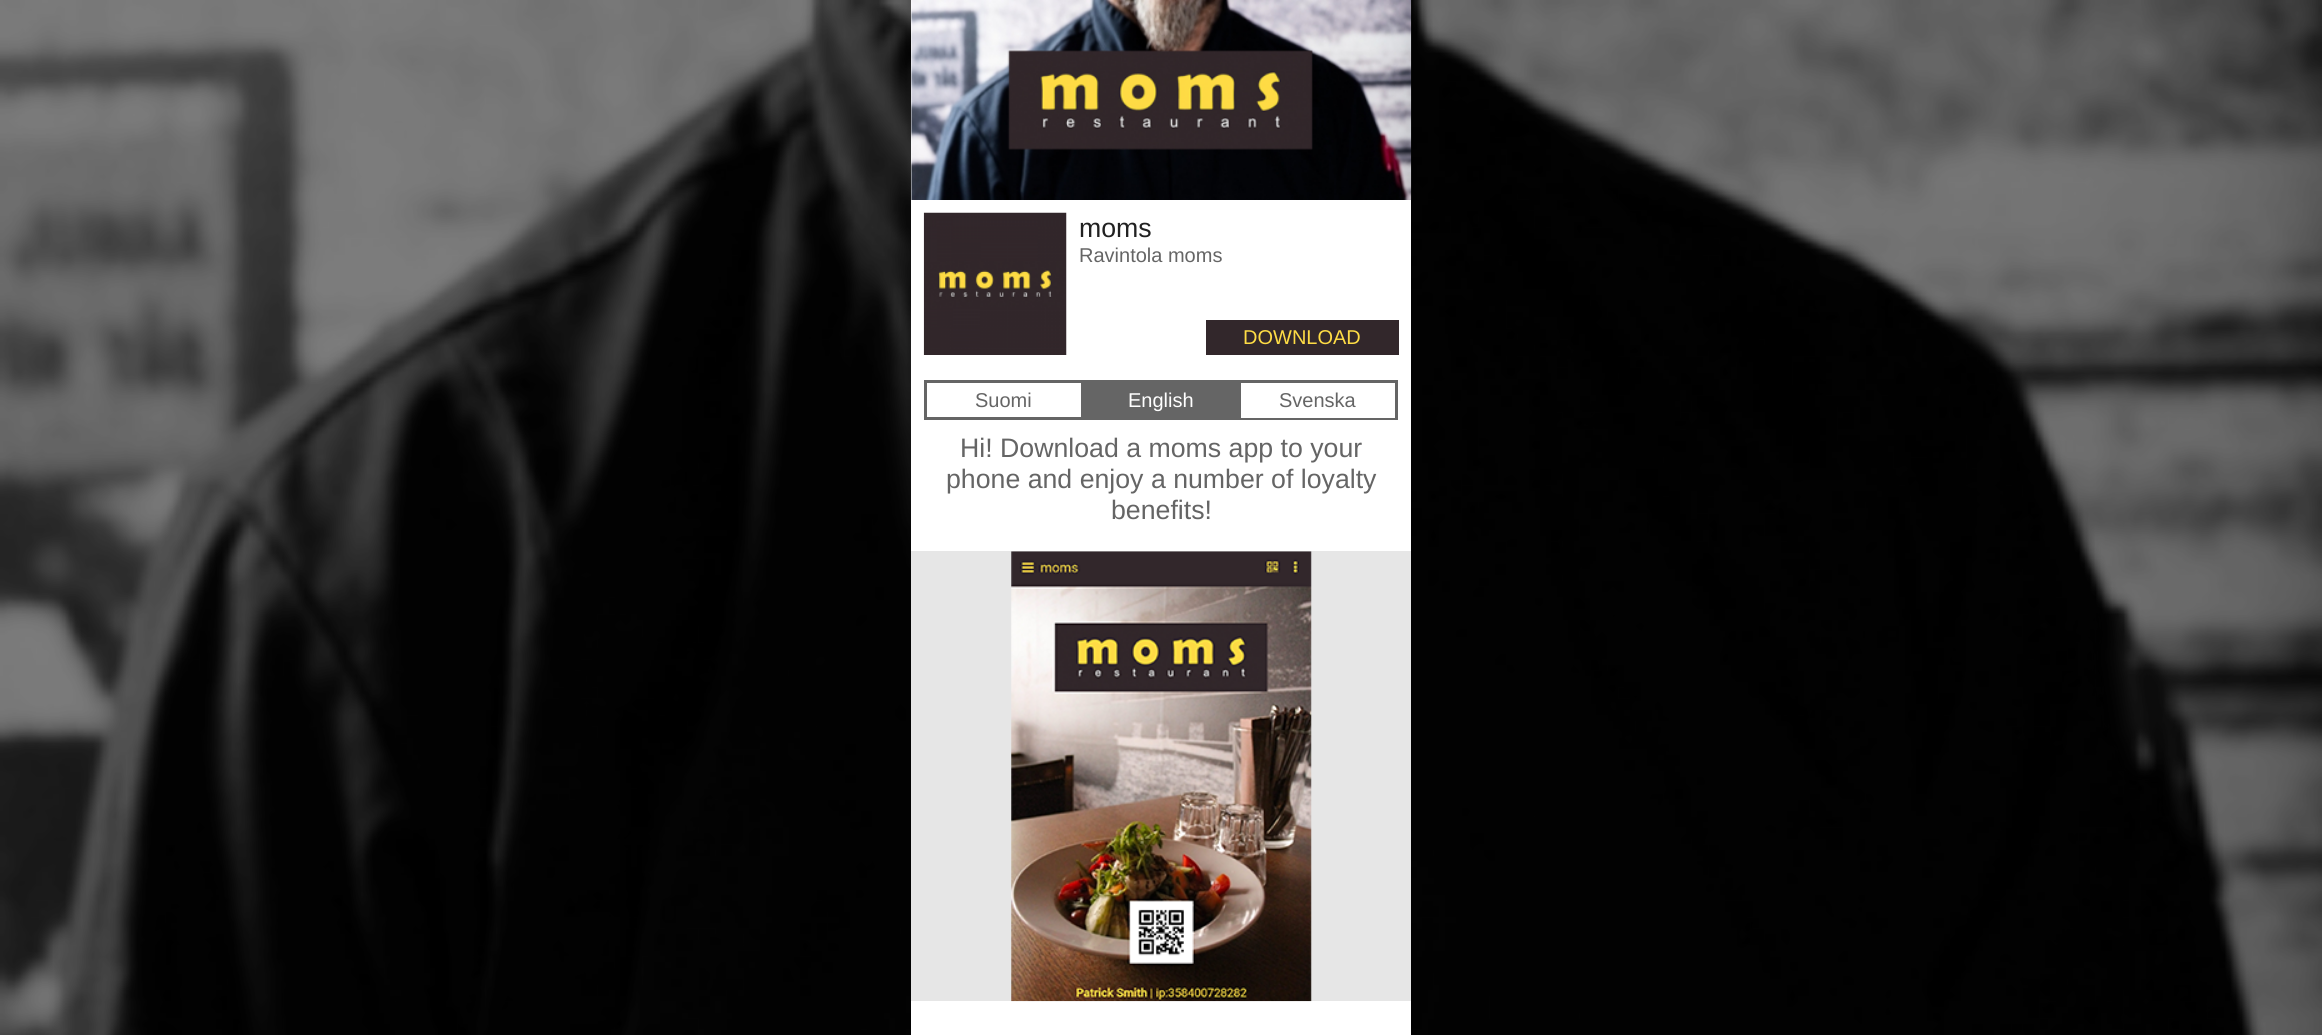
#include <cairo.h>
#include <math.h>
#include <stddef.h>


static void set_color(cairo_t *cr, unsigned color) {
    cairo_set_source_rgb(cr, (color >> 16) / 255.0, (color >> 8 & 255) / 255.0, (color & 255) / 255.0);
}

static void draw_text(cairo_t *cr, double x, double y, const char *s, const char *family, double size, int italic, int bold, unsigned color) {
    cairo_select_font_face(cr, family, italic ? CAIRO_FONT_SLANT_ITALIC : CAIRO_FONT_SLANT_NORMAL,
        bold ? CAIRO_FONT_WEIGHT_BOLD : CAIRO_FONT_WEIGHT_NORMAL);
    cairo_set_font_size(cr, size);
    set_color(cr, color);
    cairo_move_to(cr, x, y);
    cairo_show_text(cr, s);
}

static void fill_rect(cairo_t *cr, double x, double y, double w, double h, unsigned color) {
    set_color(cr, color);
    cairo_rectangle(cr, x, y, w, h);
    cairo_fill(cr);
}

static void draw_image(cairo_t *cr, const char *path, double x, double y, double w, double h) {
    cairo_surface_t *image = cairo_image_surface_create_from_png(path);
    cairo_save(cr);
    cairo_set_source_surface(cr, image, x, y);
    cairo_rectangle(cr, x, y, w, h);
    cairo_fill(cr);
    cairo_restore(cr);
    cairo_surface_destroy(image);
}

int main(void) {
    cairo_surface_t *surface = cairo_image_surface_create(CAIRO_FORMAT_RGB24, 2322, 1035);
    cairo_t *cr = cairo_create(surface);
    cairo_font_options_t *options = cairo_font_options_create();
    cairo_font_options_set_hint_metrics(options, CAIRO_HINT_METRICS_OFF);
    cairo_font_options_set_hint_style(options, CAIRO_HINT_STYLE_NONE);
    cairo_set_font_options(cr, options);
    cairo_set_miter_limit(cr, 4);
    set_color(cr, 0xFFFFFF);
    cairo_paint(cr);
    draw_image(cr, "assets/img1.png", 0, 0, 2322, 1035);
    fill_rect(cr, 911, 0, 500, 1035, 0xFFFFFF);
    draw_image(cr, "assets/img2.png", 911, 0, 501, 200);
    draw_image(cr, "assets/img3.png", 1007, 50, 306, 100);
    draw_image(cr, "assets/img4.png", 923, 212, 144, 143);
    draw_text(cr, 1079, 237, "moms", "Liberation Sans", 26.7, 0, 0, 0x212121);
    draw_text(cr, 1079, 262, "Ravintola moms", "Liberation Sans", 20, 0, 0, 0x656565);
    fill_rect(cr, 1206, 320, 193, 35, 0x32272B);
    draw_text(cr, 1243, 344, "DOWNLOAD", "Liberation Sans", 20, 0, 0, 0xFEDC45);
    cairo_rectangle(cr, 925.5, 381.5, 157, 37);
    set_color(cr, 0x656565);
    cairo_set_line_width(cr, 3);
    cairo_stroke(cr);
    draw_text(cr, 975, 407, "Suomi", "Liberation Sans", 20, 0, 0, 0x656565);
    fill_rect(cr, 1084, 380, 157, 40, 0x656565);
    draw_text(cr, 1128, 407, "English", "Liberation Sans", 20, 0, 0, 0xFFFFFF);
    fill_rect(cr, 1240, 380, 158, 3, 0x656565);
    fill_rect(cr, 1395, 380, 3, 40, 0x656565);
    fill_rect(cr, 1240, 418, 158, 2, 0x656565);
    draw_text(cr, 1279, 407, "Svenska", "Liberation Sans", 20, 0, 0, 0x656565);
    draw_text(cr, 960, 457, "Hi! Download a moms app to your", "Liberation Sans", 26.7, 0, 0, 0x656565);
    draw_text(cr, 946, 488, "phone and enjoy a number of loyalty", "Liberation Sans", 26.7, 0, 0, 0x656565);
    draw_text(cr, 1111, 519, "benefits!", "Liberation Sans", 26.7, 0, 0, 0x656565);
    fill_rect(cr, 911, 551, 500, 450, 0xE6E6E6);
    draw_image(cr, "assets/img5.png", 1011, 551, 301, 451);
    cairo_surface_write_to_png(surface, "output.png");
    cairo_font_options_destroy(options);
    cairo_destroy(cr);
    cairo_surface_destroy(surface);
    return 0;
}
